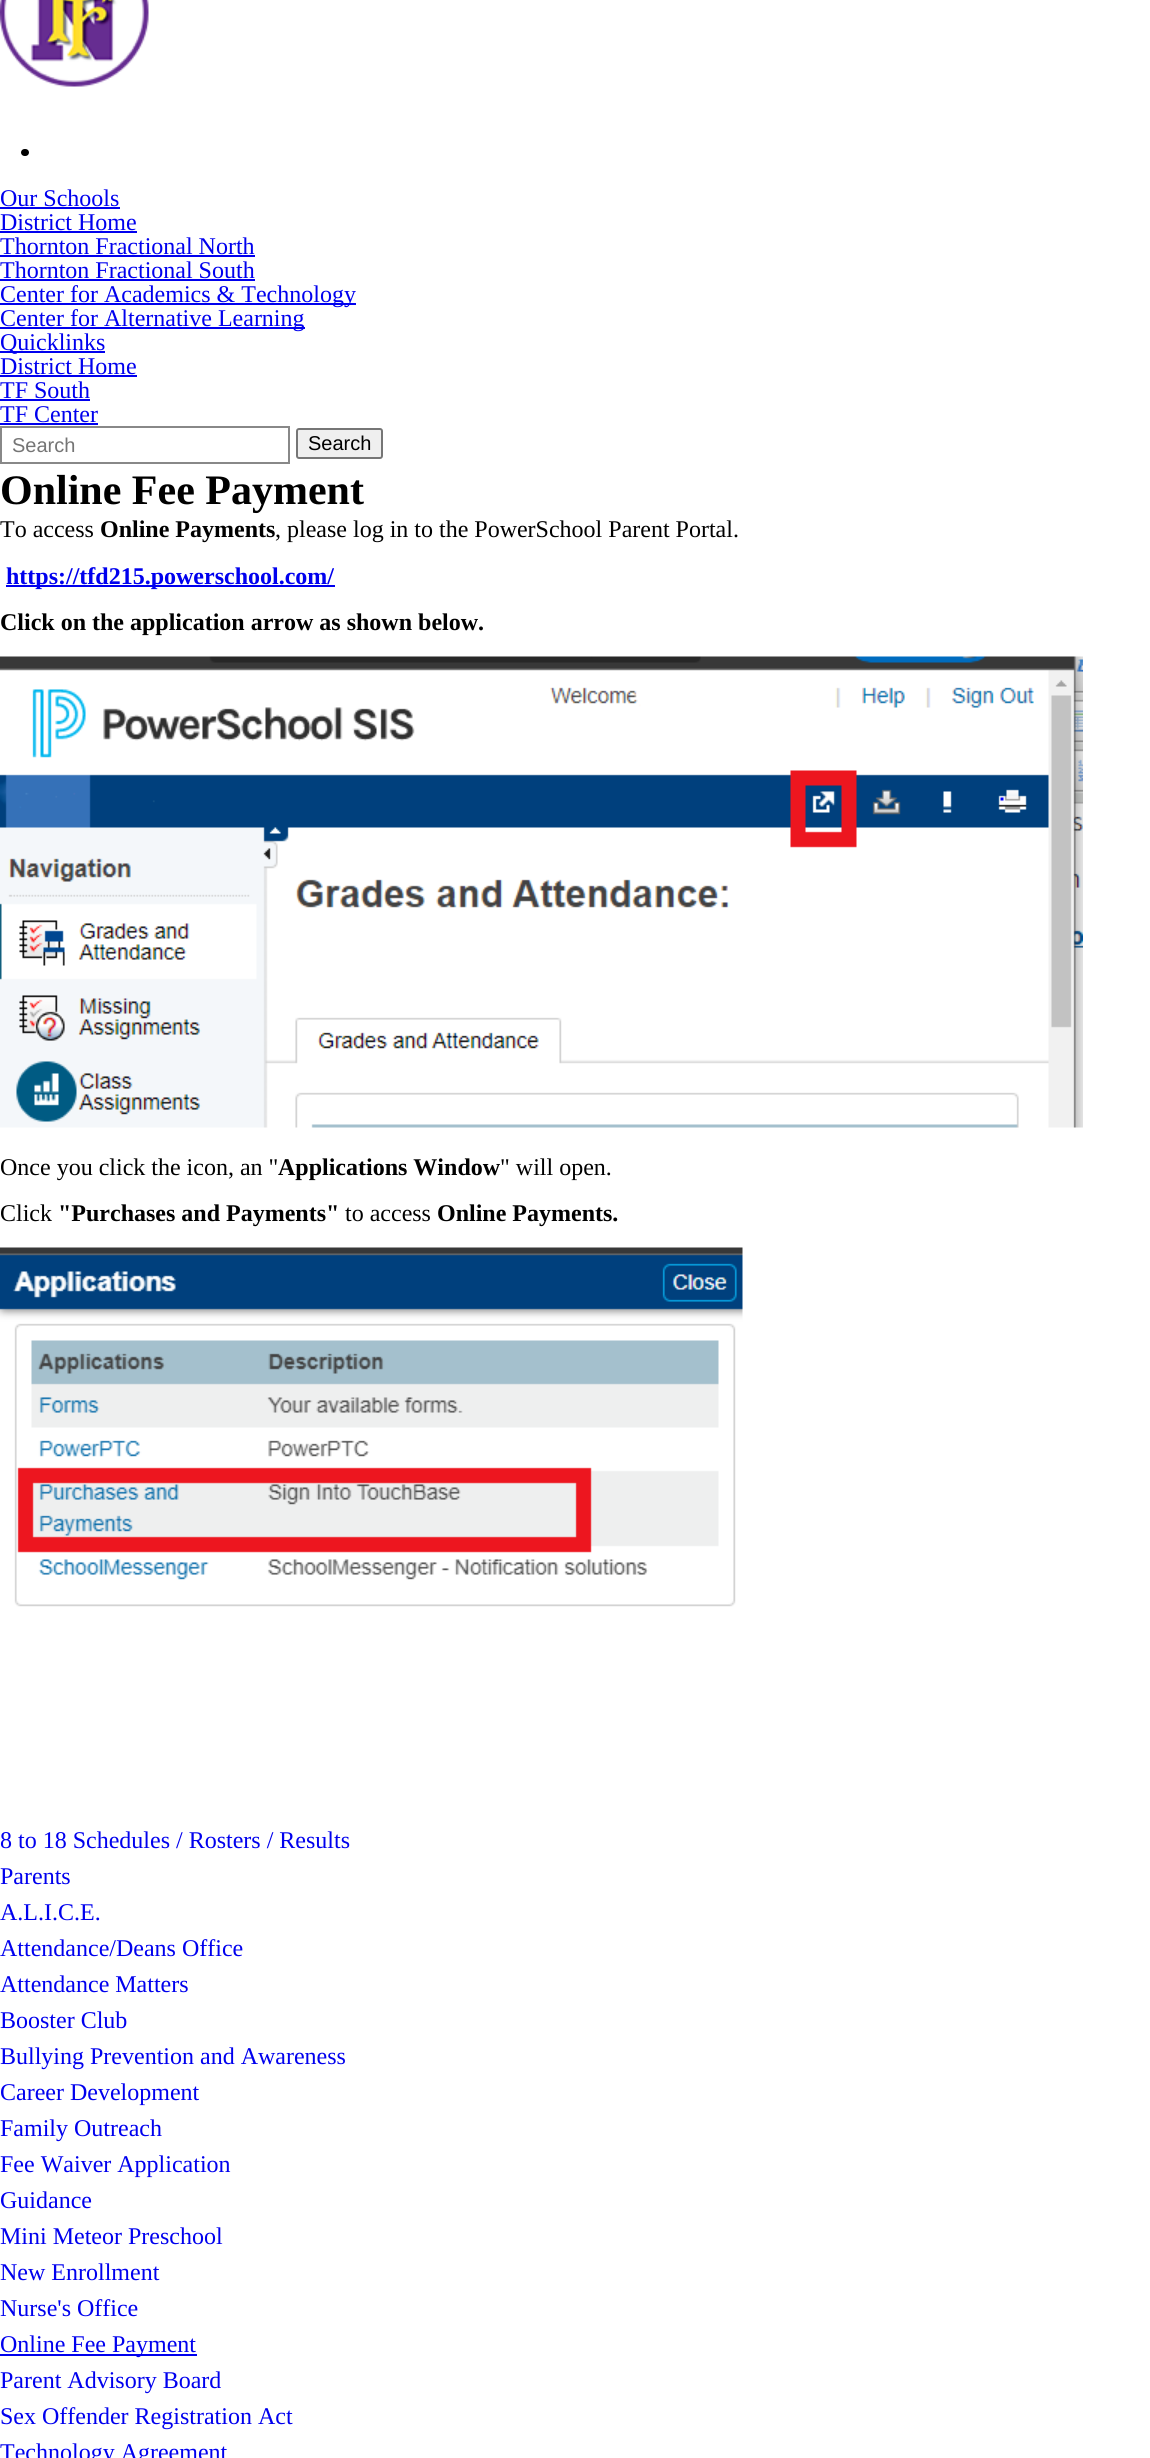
#include <cairo.h>
#include <math.h>
#include <stddef.h>


static void set_color(cairo_t *cr, unsigned color) {
    cairo_set_source_rgb(cr, (color >> 16) / 255.0, (color >> 8 & 255) / 255.0, (color & 255) / 255.0);
}

static void draw_text(cairo_t *cr, double x, double y, const char *s, const char *family, double size, int italic, int bold, unsigned color) {
    cairo_select_font_face(cr, family, italic ? CAIRO_FONT_SLANT_ITALIC : CAIRO_FONT_SLANT_NORMAL,
        bold ? CAIRO_FONT_WEIGHT_BOLD : CAIRO_FONT_WEIGHT_NORMAL);
    cairo_set_font_size(cr, size);
    set_color(cr, color);
    cairo_move_to(cr, x, y);
    cairo_show_text(cr, s);
}

static void fill_rect(cairo_t *cr, double x, double y, double w, double h, unsigned color) {
    set_color(cr, color);
    cairo_rectangle(cr, x, y, w, h);
    cairo_fill(cr);
}

static void rounded_rect(cairo_t *cr, double x, double y, double w, double h, double r) {
    cairo_new_sub_path(cr);
    cairo_arc(cr, x + w - r, y + h - r, r, 0, M_PI / 2);
    cairo_arc(cr, x + r, y + h - r, r, M_PI / 2, M_PI);
    cairo_arc(cr, x + r, y + r, r, M_PI, 1.5 * M_PI);
    cairo_arc(cr, x + w - r, y + r, r, 1.5 * M_PI, 2 * M_PI);
    cairo_close_path(cr);
}

static void draw_image(cairo_t *cr, const char *path, double x, double y, double w, double h) {
    cairo_surface_t *image = cairo_image_surface_create_from_png(path);
    cairo_save(cr);
    cairo_set_source_surface(cr, image, x, y);
    cairo_rectangle(cr, x, y, w, h);
    cairo_fill(cr);
    cairo_restore(cr);
    cairo_surface_destroy(image);
}

int main(void) {
    cairo_surface_t *surface = cairo_image_surface_create(CAIRO_FORMAT_RGB24, 1150, 2458);
    cairo_t *cr = cairo_create(surface);
    cairo_font_options_t *options = cairo_font_options_create();
    cairo_font_options_set_hint_metrics(options, CAIRO_HINT_METRICS_OFF);
    cairo_font_options_set_hint_style(options, CAIRO_HINT_STYLE_NONE);
    cairo_set_font_options(cr, options);
    cairo_set_miter_limit(cr, 4);
    set_color(cr, 0xFFFFFF);
    cairo_paint(cr);
    draw_image(cr, "assets/img1.png", 0, 0, 149, 87);
    set_color(cr, 0x000000);
    rounded_rect(cr, 21, 149, 8, 7, 3.5);
    cairo_fill(cr);
    draw_text(cr, 0, 206, "Our Schools", "Liberation Serif", 24, 0, 0, 0x0000EE);
    fill_rect(cr, 0, 207, 120, 2, 0x0000EE);
    draw_text(cr, 0, 230, "District Home", "Liberation Serif", 24, 0, 0, 0x0000EE);
    fill_rect(cr, 0, 231, 137, 2, 0x0000EE);
    draw_text(cr, 0, 254, "Thornton Fractional North", "Liberation Serif", 24, 0, 0, 0x0000EE);
    fill_rect(cr, 0, 255, 255, 2, 0x0000EE);
    draw_text(cr, 0, 278, "Thornton Fractional South", "Liberation Serif", 24, 0, 0, 0x0000EE);
    fill_rect(cr, 0, 279, 255, 2, 0x0000EE);
    fill_rect(cr, 0, 303, 356, 2, 0x0000EE);
    draw_text(cr, 0, 302, "Center for Academics & Technology", "Liberation Serif", 24, 0, 0, 0x0000EE);
    fill_rect(cr, 0, 327, 305, 2, 0x0000EE);
    draw_text(cr, 0, 326, "Center for Alternative Learning", "Liberation Serif", 24, 0, 0, 0x0000EE);
    fill_rect(cr, 0, 351, 105, 2, 0x0000EE);
    draw_text(cr, 0, 350, "Quicklinks", "Liberation Serif", 24, 0, 0, 0x0000EE);
    draw_text(cr, 0, 374, "District Home", "Liberation Serif", 24, 0, 0, 0x0000EE);
    fill_rect(cr, 0, 375, 137, 2, 0x0000EE);
    draw_text(cr, 0, 398, "TF South", "Liberation Serif", 24, 0, 0, 0x0000EE);
    fill_rect(cr, 0, 399, 90, 2, 0x0000EE);
    draw_text(cr, 0, 422, "TF Center", "Liberation Serif", 24, 0, 0, 0x0000EE);
    fill_rect(cr, 0, 423, 98, 2, 0x0000EE);
    cairo_rectangle(cr, 1, 427, 288, 36);
    set_color(cr, 0x888888);
    cairo_stroke(cr);
    draw_text(cr, 12, 452, "Search", "Liberation Sans", 20, 0, 0, 0x757575);
    set_color(cr, 0xEFEFEF);
    rounded_rect(cr, 297, 429, 85, 29, 2);
    cairo_fill_preserve(cr);
    set_color(cr, 0x767676);
    cairo_stroke(cr);
    draw_text(cr, 308, 450, "Search", "Liberation Sans", 20, 0, 0, 0x000000);
    draw_text(cr, 0, 504, "Online Fee Payment", "Liberation Serif", 42, 0, 1, 0x000000);
    draw_text(cr, 0, 537, "To access", "Liberation Serif", 24, 0, 0, 0x000000);
    draw_text(cr, 100, 537, "Online Payments", "Liberation Serif", 24, 0, 1, 0x000000);
    draw_text(cr, 275, 537, ", please log in to the PowerSchool Parent Portal.", "Liberation Serif", 24, 0, 0, 0x000000);
    fill_rect(cr, 6, 585, 329, 2, 0x0000EE);
    draw_text(cr, 6, 584, "https://tfd215.powerschool.com/", "Liberation Serif", 24, 0, 1, 0x0000EE);
    draw_text(cr, 0, 630, "Click on the application arrow as shown below.", "Liberation Serif", 24, 0, 1, 0x000000);
    draw_image(cr, "assets/img2.png", 0, 656, 1083, 472);
    draw_text(cr, 0, 1175, "Once you click the icon, an \"", "Liberation Serif", 24, 0, 0, 0x000000);
    draw_text(cr, 278, 1175, "Applications Window", "Liberation Serif", 24, 0, 1, 0x000000);
    draw_text(cr, 500, 1175, "\" will open.", "Liberation Serif", 24, 0, 0, 0x000000);
    draw_text(cr, 0, 1221, "Click", "Liberation Serif", 24, 0, 0, 0x000000);
    draw_text(cr, 58, 1221, "\"Purchases and Payments\"", "Liberation Serif", 24, 0, 1, 0x000000);
    draw_text(cr, 345, 1221, "to access", "Liberation Serif", 24, 0, 0, 0x000000);
    draw_text(cr, 437, 1221, "Online Payments.", "Liberation Serif", 24, 0, 1, 0x000000);
    draw_image(cr, "assets/img3.png", 0, 1247, 743, 360);
    draw_text(cr, 0, 1848, "8 to 18 Schedules / Rosters / Results", "Liberation Serif", 24, 0, 0, 0x0000EE);
    draw_text(cr, 0, 1884, "Parents", "Liberation Serif", 24, 0, 0, 0x0000EE);
    draw_text(cr, 0, 1920, "A.L.I.C.E.", "Liberation Serif", 24, 0, 0, 0x0000EE);
    draw_text(cr, 0, 1956, "Attendance/Deans Office", "Liberation Serif", 24, 0, 0, 0x0000EE);
    draw_text(cr, 0, 1992, "Attendance Matters", "Liberation Serif", 24, 0, 0, 0x0000EE);
    draw_text(cr, 0, 2028, "Booster Club", "Liberation Serif", 24, 0, 0, 0x0000EE);
    draw_text(cr, 0, 2064, "Bullying Prevention and Awareness", "Liberation Serif", 24, 0, 0, 0x0000EE);
    draw_text(cr, 0, 2100, "Career Development", "Liberation Serif", 24, 0, 0, 0x0000EE);
    draw_text(cr, 0, 2136, "Family Outreach", "Liberation Serif", 24, 0, 0, 0x0000EE);
    draw_text(cr, 0, 2172, "Fee Waiver Application", "Liberation Serif", 24, 0, 0, 0x0000EE);
    draw_text(cr, 0, 2208, "Guidance", "Liberation Serif", 24, 0, 0, 0x0000EE);
    draw_text(cr, 0, 2244, "Mini Meteor Preschool", "Liberation Serif", 24, 0, 0, 0x0000EE);
    draw_text(cr, 0, 2280, "New Enrollment", "Liberation Serif", 24, 0, 0, 0x0000EE);
    draw_text(cr, 0, 2316, "Nurse's Office", "Liberation Serif", 24, 0, 0, 0x0000EE);
    fill_rect(cr, 0, 2354, 197, 2, 0x0000EE);
    draw_text(cr, 0, 2352, "Online Fee Payment", "Liberation Serif", 24, 0, 0, 0x0000EE);
    draw_text(cr, 0, 2388, "Parent Advisory Board", "Liberation Serif", 24, 0, 0, 0x0000EE);
    draw_text(cr, 0, 2424, "Sex Offender Registration Act", "Liberation Serif", 24, 0, 0, 0x0000EE);
    draw_text(cr, 0, 2460, "Technology Agreement", "Liberation Serif", 24, 0, 0, 0x0000EE);
    cairo_surface_write_to_png(surface, "output.png");
    cairo_font_options_destroy(options);
    cairo_destroy(cr);
    cairo_surface_destroy(surface);
    return 0;
}
